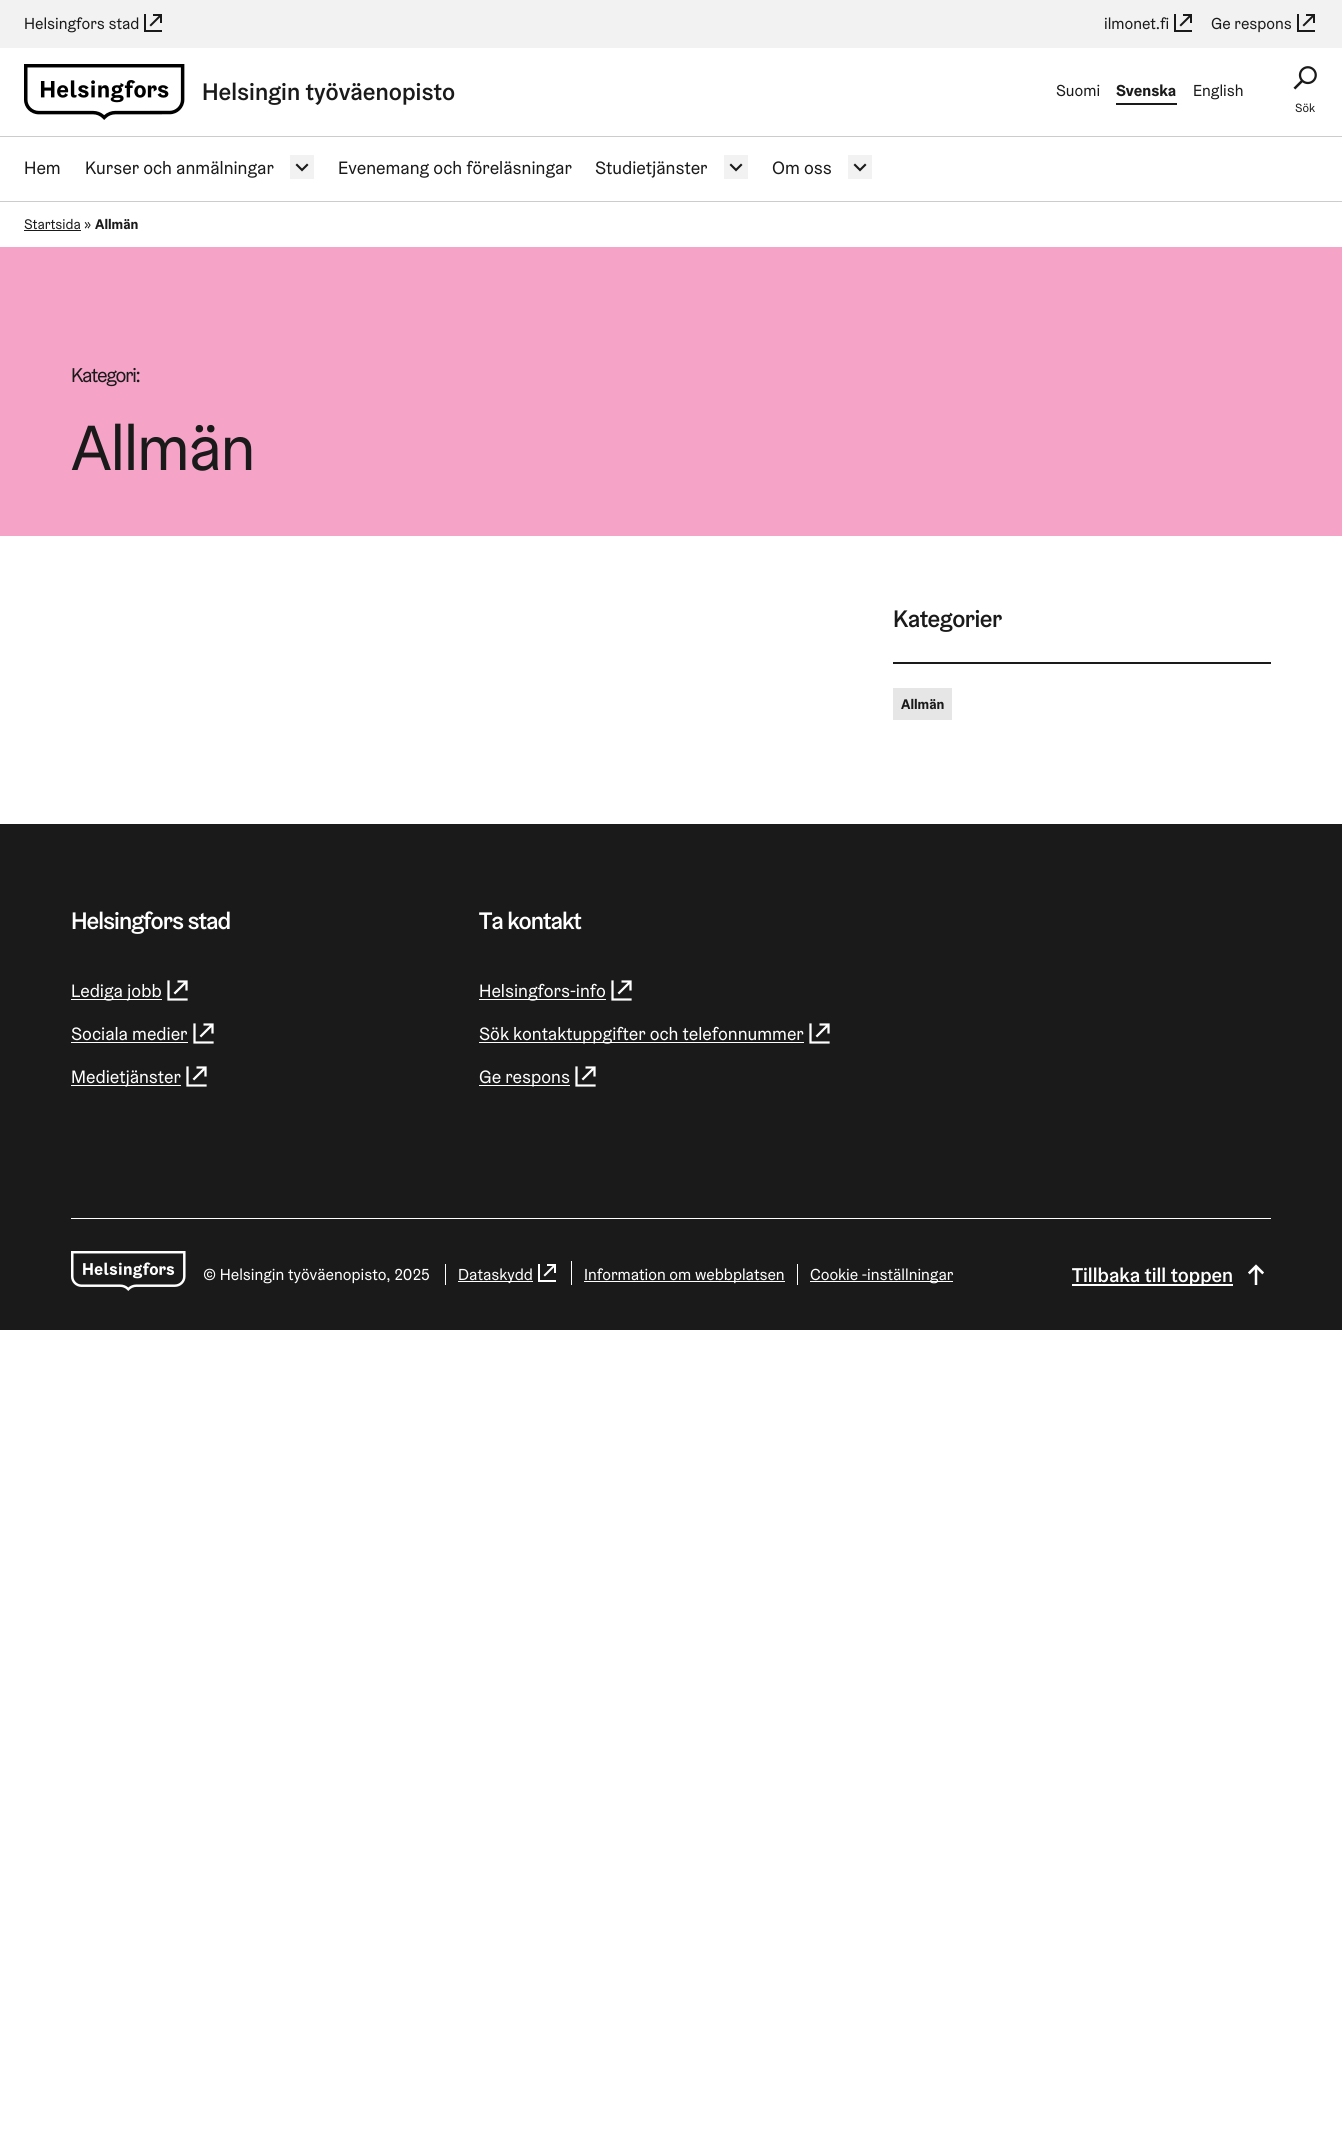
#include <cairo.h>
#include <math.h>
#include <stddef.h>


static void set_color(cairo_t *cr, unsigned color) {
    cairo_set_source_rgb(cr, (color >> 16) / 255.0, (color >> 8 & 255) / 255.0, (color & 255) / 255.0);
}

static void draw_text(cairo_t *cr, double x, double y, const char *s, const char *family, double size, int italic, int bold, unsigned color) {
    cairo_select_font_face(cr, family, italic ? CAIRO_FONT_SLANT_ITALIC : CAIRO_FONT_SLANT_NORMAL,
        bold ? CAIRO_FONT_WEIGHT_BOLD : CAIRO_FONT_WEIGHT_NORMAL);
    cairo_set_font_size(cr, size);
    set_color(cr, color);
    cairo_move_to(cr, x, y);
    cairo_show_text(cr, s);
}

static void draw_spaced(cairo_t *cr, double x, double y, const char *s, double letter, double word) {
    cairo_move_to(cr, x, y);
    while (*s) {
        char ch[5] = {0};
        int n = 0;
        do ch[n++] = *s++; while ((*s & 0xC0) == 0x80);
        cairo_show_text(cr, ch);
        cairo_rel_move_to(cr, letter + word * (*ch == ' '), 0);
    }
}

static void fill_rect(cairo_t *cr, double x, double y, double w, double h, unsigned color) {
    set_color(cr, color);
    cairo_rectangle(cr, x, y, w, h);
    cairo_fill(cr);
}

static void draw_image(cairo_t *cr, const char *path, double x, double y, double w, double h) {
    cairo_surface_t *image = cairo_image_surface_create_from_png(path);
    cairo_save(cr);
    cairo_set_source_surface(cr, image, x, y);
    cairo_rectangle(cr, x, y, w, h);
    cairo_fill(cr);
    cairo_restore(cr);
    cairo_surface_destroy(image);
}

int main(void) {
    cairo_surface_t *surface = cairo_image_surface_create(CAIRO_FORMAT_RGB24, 1342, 2148);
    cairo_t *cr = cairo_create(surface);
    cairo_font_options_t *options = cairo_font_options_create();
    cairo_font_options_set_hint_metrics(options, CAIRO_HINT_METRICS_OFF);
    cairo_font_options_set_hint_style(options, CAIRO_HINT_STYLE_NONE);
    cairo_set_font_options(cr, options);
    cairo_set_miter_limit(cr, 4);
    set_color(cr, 0xFFFFFF);
    cairo_paint(cr);
    fill_rect(cr, 0, 0, 1342, 48, 0xF2F2F2);
    draw_text(cr, 24, 29, "Helsingfors stad", "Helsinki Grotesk", 16, 0, 0, 0x1A1A1A);
    draw_image(cr, "assets/img1.png", 144, 14, 18, 18);
    draw_text(cr, 1104, 29, "ilmonet.fi", "Helsinki Grotesk", 16, 0, 0, 0x1A1A1A);
    draw_image(cr, "assets/img1.png", 1174, 14, 18, 18);
    draw_text(cr, 1211, 29, "Ge respons", "Helsinki Grotesk", 16, 0, 0, 0x1A1A1A);
    draw_image(cr, "assets/img1.png", 1297, 14, 18, 18);
    draw_image(cr, "assets/img2.png", 24, 64, 161, 56);
    draw_text(cr, 202, 100, "Helsingin työväenopisto", "Helsinki Grotesk Medium", 24, 0, 0, 0x1A1A1A);
    draw_text(cr, 1056, 96, "Suomi", "Helsinki Grotesk", 16, 0, 0, 0x1A1A1A);
    fill_rect(cr, 1116, 103, 61, 2, 0x1A1A1A);
    draw_text(cr, 1116, 96, "Svenska", "Helsinki Grotesk", 16, 0, 1, 0x1A1A1A);
    draw_text(cr, 1193, 96, "English", "Helsinki Grotesk", 16, 0, 0, 0x1A1A1A);
    draw_image(cr, "assets/img3.png", 1293, 66, 24, 24);
    draw_text(cr, 1295, 112, "Sök", "Helsinki Grotesk", 12, 0, 0, 0x1A1A1A);
    fill_rect(cr, 0, 136, 1342, 1, 0xCCCCCC);
    fill_rect(cr, 0, 201, 1342, 1, 0xCCCCCC);
    draw_text(cr, 24, 174, "Hem", "Helsinki Grotesk", 18, 0, 0, 0x1A1A1A);
    draw_text(cr, 85, 174, "Kurser och anmälningar", "Helsinki Grotesk", 18, 0, 0, 0x1A1A1A);
    fill_rect(cr, 290, 155, 24, 24, 0xF2F2F2);
    draw_image(cr, "assets/img4.png", 295, 163, 14, 9);
    draw_text(cr, 338, 174, "Evenemang och föreläsningar", "Helsinki Grotesk", 18, 0, 0, 0x1A1A1A);
    draw_text(cr, 595, 174, "Studietjänster", "Helsinki Grotesk", 18, 0, 0, 0x1A1A1A);
    fill_rect(cr, 724, 155, 24, 24, 0xF2F2F2);
    draw_image(cr, "assets/img4.png", 729, 163, 14, 9);
    draw_text(cr, 772, 174, "Om oss", "Helsinki Grotesk", 18, 0, 0, 0x1A1A1A);
    fill_rect(cr, 848, 155, 24, 24, 0xF2F2F2);
    draw_image(cr, "assets/img4.png", 853, 163, 14, 9);
    draw_text(cr, 24, 229, "Startsida »", "Helsinki Grotesk", 14, 0, 0, 0x1A1A1A);
    fill_rect(cr, 24, 230, 57, 1, 0x1A1A1A);
    draw_text(cr, 95, 229, "Allmän", "Helsinki Grotesk", 14, 0, 1, 0x1A1A1A);
    fill_rect(cr, 0, 247, 1342, 289, 0xF5A3C7);
    cairo_select_font_face(cr, "Helsinki Grotesk", CAIRO_FONT_SLANT_NORMAL, CAIRO_FONT_WEIGHT_NORMAL);
    cairo_set_font_size(cr, 20);
    set_color(cr, 0x1A1A1A);
    draw_spaced(cr, 71, 382, "Kategori:", -1.25, 0);
    cairo_set_font_size(cr, 64);
    draw_spaced(cr, 71, 470, "Allmän", -1.25, 0);
    fill_rect(cr, 893, 662, 378, 2, 0x1A1A1A);
    cairo_select_font_face(cr, "Helsinki Grotesk Medium", CAIRO_FONT_SLANT_NORMAL, CAIRO_FONT_WEIGHT_NORMAL);
    cairo_set_font_size(cr, 24);
    draw_spaced(cr, 893, 627, "Kategorier", -0.5, 0);
    fill_rect(cr, 893, 688, 59, 32, 0xE6E6E6);
    draw_text(cr, 901, 709, "Allmän", "Helsinki Grotesk", 14, 0, 1, 0x1A1A1A);
    fill_rect(cr, 0, 824, 1342, 506, 0x1A1A1A);
    cairo_select_font_face(cr, "Helsinki Grotesk Medium", CAIRO_FONT_SLANT_NORMAL, CAIRO_FONT_WEIGHT_NORMAL);
    cairo_set_font_size(cr, 24);
    set_color(cr, 0xFFFFFF);
    draw_spaced(cr, 71, 929, "Helsingfors stad", -1, 0);
    fill_rect(cr, 71, 999, 91, 1, 0xFFFFFF);
    draw_text(cr, 71, 997, "Lediga jobb", "Helsinki Grotesk", 18, 0, 0, 0xFFFFFF);
    draw_image(cr, "assets/img5.png", 167, 980, 21, 21);
    draw_text(cr, 71, 1040, "Sociala medier", "Helsinki Grotesk", 18, 0, 0, 0xFFFFFF);
    fill_rect(cr, 71, 1042, 117, 1, 0xFFFFFF);
    draw_image(cr, "assets/img5.png", 193, 1023, 21, 21);
    fill_rect(cr, 71, 1085, 110, 1, 0xFFFFFF);
    draw_text(cr, 71, 1083, "Medietjänster", "Helsinki Grotesk", 18, 0, 0, 0xFFFFFF);
    draw_image(cr, "assets/img5.png", 186, 1066, 21, 21);
    cairo_select_font_face(cr, "Helsinki Grotesk Medium", CAIRO_FONT_SLANT_NORMAL, CAIRO_FONT_WEIGHT_NORMAL);
    cairo_set_font_size(cr, 24);
    draw_spaced(cr, 479, 929, "Ta kontakt", -1, 0);
    fill_rect(cr, 479, 999, 127, 1, 0xFFFFFF);
    draw_text(cr, 479, 997, "Helsingfors-info", "Helsinki Grotesk", 18, 0, 0, 0xFFFFFF);
    draw_image(cr, "assets/img5.png", 611, 980, 21, 21);
    fill_rect(cr, 479, 1042, 325, 1, 0xFFFFFF);
    draw_text(cr, 479, 1040, "Sök kontaktuppgifter och telefonnummer", "Helsinki Grotesk", 18, 0, 0, 0xFFFFFF);
    draw_image(cr, "assets/img5.png", 809, 1023, 21, 21);
    fill_rect(cr, 479, 1085, 91, 1, 0xFFFFFF);
    draw_text(cr, 479, 1083, "Ge respons", "Helsinki Grotesk", 18, 0, 0, 0xFFFFFF);
    draw_image(cr, "assets/img5.png", 575, 1066, 21, 21);
    fill_rect(cr, 71, 1218, 1200, 1, 0xFFFFFF);
    draw_image(cr, "assets/img6.png", 71, 1251, 115, 40);
    draw_text(cr, 203, 1280, "© Helsingin työväenopisto, 2025", "Helsinki Grotesk", 16, 0, 0, 0xFFFFFF);
    fill_rect(cr, 445, 1264, 1, 21, 0xFFFFFF);
    fill_rect(cr, 571, 1261, 1, 24, 0xFFFFFF);
    fill_rect(cr, 458, 1281, 75, 1, 0xFFFFFF);
    draw_text(cr, 458, 1280, "Dataskydd", "Helsinki Grotesk", 16, 0, 0, 0xFFFFFF);
    draw_image(cr, "assets/img7.png", 538, 1264, 18, 18);
    fill_rect(cr, 584, 1281, 201, 1, 0xFFFFFF);
    draw_text(cr, 584, 1280, "Information om webbplatsen", "Helsinki Grotesk", 16, 0, 0, 0xFFFFFF);
    fill_rect(cr, 797, 1264, 1, 21, 0xFFFFFF);
    fill_rect(cr, 810, 1281, 143, 1, 0xFFFFFF);
    draw_text(cr, 810, 1280, "Cookie -inställningar", "Helsinki Grotesk", 16, 0, 0, 0xFFFFFF);
    fill_rect(cr, 1072, 1284, 161, 2, 0xFFFFFF);
    draw_text(cr, 1072, 1282, "Tillbaka till toppen", "Helsinki Grotesk Medium", 20, 0, 0, 0xFFFFFF);
    draw_image(cr, "assets/img8.png", 1248, 1264, 16, 21);
    cairo_surface_write_to_png(surface, "output.png");
    cairo_font_options_destroy(options);
    cairo_destroy(cr);
    cairo_surface_destroy(surface);
    return 0;
}
